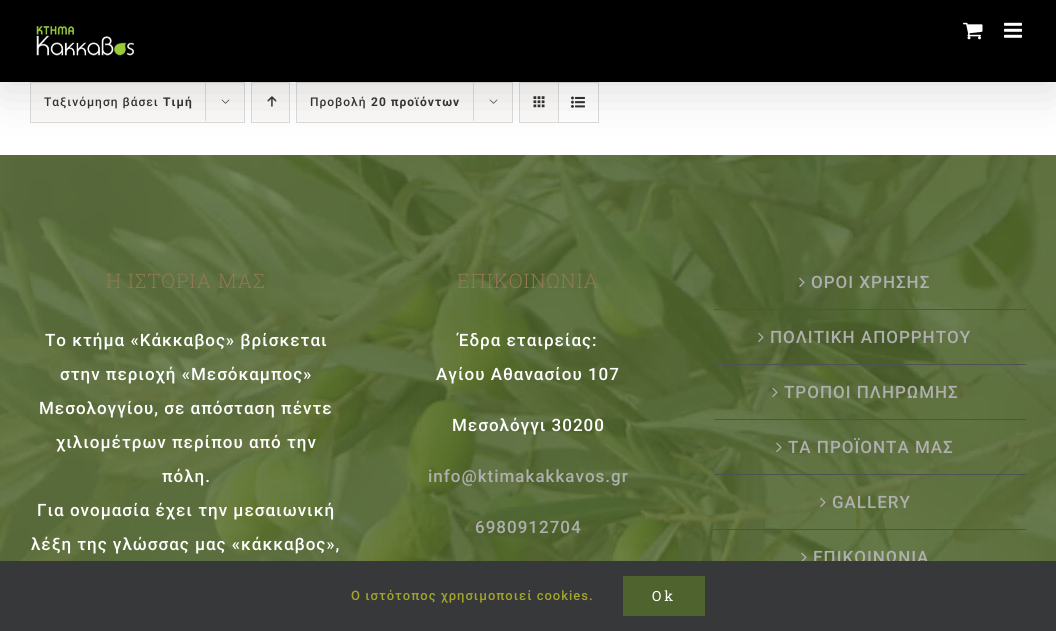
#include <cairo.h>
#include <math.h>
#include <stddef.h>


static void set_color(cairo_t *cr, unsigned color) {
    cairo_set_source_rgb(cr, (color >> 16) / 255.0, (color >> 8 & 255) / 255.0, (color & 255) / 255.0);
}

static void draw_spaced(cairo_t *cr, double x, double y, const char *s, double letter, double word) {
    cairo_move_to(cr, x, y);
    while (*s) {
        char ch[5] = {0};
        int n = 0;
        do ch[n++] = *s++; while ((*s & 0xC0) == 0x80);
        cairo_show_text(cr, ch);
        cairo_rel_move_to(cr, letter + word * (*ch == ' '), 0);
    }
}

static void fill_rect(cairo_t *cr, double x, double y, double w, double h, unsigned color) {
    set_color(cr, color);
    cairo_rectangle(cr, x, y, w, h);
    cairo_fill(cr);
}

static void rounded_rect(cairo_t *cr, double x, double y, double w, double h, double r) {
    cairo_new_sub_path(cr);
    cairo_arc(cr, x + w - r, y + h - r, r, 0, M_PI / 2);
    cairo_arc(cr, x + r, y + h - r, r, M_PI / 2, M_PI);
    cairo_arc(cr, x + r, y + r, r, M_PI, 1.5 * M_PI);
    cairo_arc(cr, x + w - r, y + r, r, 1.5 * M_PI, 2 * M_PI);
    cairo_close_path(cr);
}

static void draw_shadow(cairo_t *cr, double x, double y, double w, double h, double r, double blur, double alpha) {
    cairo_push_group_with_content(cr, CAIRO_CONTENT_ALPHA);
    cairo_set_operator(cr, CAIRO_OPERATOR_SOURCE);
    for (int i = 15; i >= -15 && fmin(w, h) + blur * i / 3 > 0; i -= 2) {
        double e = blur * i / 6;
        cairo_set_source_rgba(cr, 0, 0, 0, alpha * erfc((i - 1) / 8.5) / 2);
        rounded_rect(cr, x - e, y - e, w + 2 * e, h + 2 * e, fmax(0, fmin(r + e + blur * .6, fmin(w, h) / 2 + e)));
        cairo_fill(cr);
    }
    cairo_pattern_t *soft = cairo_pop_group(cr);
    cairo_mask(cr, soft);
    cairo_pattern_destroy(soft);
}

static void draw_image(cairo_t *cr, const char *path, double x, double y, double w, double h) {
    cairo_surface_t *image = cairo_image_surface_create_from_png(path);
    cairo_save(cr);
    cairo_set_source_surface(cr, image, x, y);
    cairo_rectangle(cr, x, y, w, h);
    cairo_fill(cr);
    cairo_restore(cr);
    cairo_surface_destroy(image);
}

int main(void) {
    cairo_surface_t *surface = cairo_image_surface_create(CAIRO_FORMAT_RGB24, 1056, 631);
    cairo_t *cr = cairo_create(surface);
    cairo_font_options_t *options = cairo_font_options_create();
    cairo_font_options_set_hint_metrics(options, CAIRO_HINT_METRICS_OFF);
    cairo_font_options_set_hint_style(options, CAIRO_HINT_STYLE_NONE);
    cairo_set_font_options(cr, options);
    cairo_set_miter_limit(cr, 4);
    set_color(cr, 0xFFFFFF);
    cairo_paint(cr);
    set_color(cr, 0xFBFAF9);
    cairo_rectangle(cr, 30.5, 82.5, 214, 40);
    cairo_fill_preserve(cr);
    set_color(cr, 0xDBDBDB);
    cairo_set_line_width(cr, 1);
    cairo_stroke(cr);
    fill_rect(cr, 205, 82, 1, 39, 0xDBDBDB);
    draw_image(cr, "assets/img4.png", 221, 99, 9, 5);
    set_color(cr, 0xFBFAF9);
    cairo_rectangle(cr, 251.5, 82.5, 38, 40);
    cairo_fill_preserve(cr);
    set_color(cr, 0xDBDBDB);
    cairo_stroke(cr);
    draw_image(cr, "assets/img5.png", 267, 96, 10, 11);
    set_color(cr, 0xFBFAF9);
    cairo_rectangle(cr, 296.5, 82.5, 216, 40);
    cairo_fill_preserve(cr);
    set_color(cr, 0xDBDBDB);
    cairo_stroke(cr);
    fill_rect(cr, 473, 82, 1, 39, 0xDBDBDB);
    draw_image(cr, "assets/img4.png", 489, 99, 9, 5);
    cairo_rectangle(cr, 519.5, 82.5, 79, 40);
    cairo_stroke(cr);
    fill_rect(cr, 520, 83, 38, 39, 0xFBFAF9);
    fill_rect(cr, 558, 83, 1, 39, 0xDBDBDB);
    draw_image(cr, "assets/img6.png", 533, 96, 12, 12);
    draw_image(cr, "assets/img7.png", 571, 96, 14, 12);
    draw_image(cr, "assets/img8.png", 0, 155, 1056, 406);
    set_color(cr, 0x000000);
    draw_shadow(cr, 2, 12, 1052, 78, 0, 25, 0.14);
    fill_rect(cr, 0, 0, 1056, 82, 0x000000);
    draw_image(cr, "assets/img1.png", 36, 26, 99, 30);
    draw_image(cr, "assets/img2.png", 963, 22, 20, 18);
    draw_image(cr, "assets/img3.png", 1004, 22, 18, 16);
    cairo_select_font_face(cr, "Roboto Medium", CAIRO_FONT_SLANT_NORMAL, CAIRO_FONT_WEIGHT_NORMAL);
    cairo_set_font_size(cr, 12);
    set_color(cr, 0x333333);
    draw_spaced(cr, 44, 106, "Ταξινόμηση βάσει", 1, 0);
    cairo_select_font_face(cr, "Roboto", CAIRO_FONT_SLANT_NORMAL, CAIRO_FONT_WEIGHT_BOLD);
    draw_spaced(cr, 163, 106, "Τιμή", 1, 0);
    cairo_select_font_face(cr, "Roboto Medium", CAIRO_FONT_SLANT_NORMAL, CAIRO_FONT_WEIGHT_NORMAL);
    draw_spaced(cr, 310, 106, "Προβολή", 1, 0);
    cairo_select_font_face(cr, "Roboto", CAIRO_FONT_SLANT_NORMAL, CAIRO_FONT_WEIGHT_BOLD);
    draw_spaced(cr, 371, 106, "20 προϊόντων", 1, 0);
    cairo_select_font_face(cr, "Roboto Slab Light", CAIRO_FONT_SLANT_NORMAL, CAIRO_FONT_WEIGHT_NORMAL);
    cairo_set_font_size(cr, 20);
    set_color(cr, 0x917852);
    draw_spaced(cr, 106, 288, "Η ΙΣΤΟΡΙΑ ΜΑΣ", 1, 0);
    cairo_select_font_face(cr, "Roboto Medium", CAIRO_FONT_SLANT_NORMAL, CAIRO_FONT_WEIGHT_NORMAL);
    cairo_set_font_size(cr, 17);
    set_color(cr, 0xFFFFFF);
    draw_spaced(cr, 45, 346, "Το κτήμα «Κάκκαβος» βρίσκεται", 1, 0);
    draw_spaced(cr, 60, 380, "στην περιοχή «Μεσόκαμπος»", 1, 0);
    draw_spaced(cr, 39, 414, "Μεσολογγίου, σε απόσταση πέντε", 1, 0);
    draw_spaced(cr, 56, 448, "χιλιομέτρων περίπου από την", 1, 0);
    draw_spaced(cr, 162, 482, "πόλη.", 1, 0);
    draw_spaced(cr, 37, 516, "Για ονομασία έχει την μεσαιωνική", 1, 0);
    draw_spaced(cr, 31, 550, "λέξη της γλώσσας μας «κάκκαβος»,", 1, 0);
    cairo_select_font_face(cr, "Roboto Slab Light", CAIRO_FONT_SLANT_NORMAL, CAIRO_FONT_WEIGHT_NORMAL);
    cairo_set_font_size(cr, 20);
    set_color(cr, 0x917852);
    draw_spaced(cr, 457, 288, "ΕΠΙΚΟΙΝΩΝΙΑ", 1, 0);
    cairo_select_font_face(cr, "Roboto Medium", CAIRO_FONT_SLANT_NORMAL, CAIRO_FONT_WEIGHT_NORMAL);
    cairo_set_font_size(cr, 17);
    set_color(cr, 0xFFFFFF);
    draw_spaced(cr, 458, 346, "Έδρα εταιρείας:", 1, 0);
    draw_spaced(cr, 436, 380, "Αγίου Αθανασίου 107", 1, 0);
    draw_spaced(cr, 452, 431, "Μεσολόγγι 30200", 1, 0);
    set_color(cr, 0xAFAFAF);
    draw_spaced(cr, 428, 482, "info@ktimakakkavos.gr", 1, 0);
    draw_spaced(cr, 475, 533, "6980912704", 1, 0);
    fill_rect(cr, 714, 309, 312, 1, 0x505152);
    draw_image(cr, "assets/img9.png", 799, 277, 6, 10);
    set_color(cr, 0xAFAFAF);
    draw_spaced(cr, 811, 288, "ΟΡΟΙ ΧΡΗΣΗΣ", 1, 0);
    fill_rect(cr, 714, 364, 312, 1, 0x505152);
    draw_image(cr, "assets/img10.png", 758, 332, 6, 10);
    set_color(cr, 0xAFAFAF);
    draw_spaced(cr, 770, 343, "ΠΟΛΙΤΙΚΗ ΑΠΟΡΡΗΤΟΥ", 1, 0);
    fill_rect(cr, 714, 419, 312, 1, 0x505152);
    draw_image(cr, "assets/img11.png", 772, 387, 6, 10);
    set_color(cr, 0xAFAFAF);
    draw_spaced(cr, 784, 398, "ΤΡΟΠΟΙ ΠΛΗΡΩΜΗΣ", 1, 0);
    fill_rect(cr, 714, 474, 312, 1, 0x505152);
    draw_image(cr, "assets/img12.png", 776, 442, 6, 10);
    set_color(cr, 0xAFAFAF);
    draw_spaced(cr, 788, 453, "ΤΑ ΠΡΟΪΟΝΤΑ ΜΑΣ", 1, 0);
    fill_rect(cr, 714, 529, 312, 1, 0x505152);
    draw_image(cr, "assets/img13.png", 820, 497, 6, 10);
    set_color(cr, 0xAFAFAF);
    draw_spaced(cr, 832, 508, "GALLERY", 1, 0);
    draw_image(cr, "assets/img14.png", 801, 552, 6, 9);
    draw_spaced(cr, 813, 563, "ΕΠΙΚΟΙΝΩΝΙΑ", 1, 0);
    fill_rect(cr, 0, 561, 1056, 70, 0x363839);
    cairo_set_font_size(cr, 13);
    set_color(cr, 0xA4A52A);
    draw_spaced(cr, 351, 600, "Ο ιστότοπος χρησιμοποιεί cookies.", 1, 0);
    fill_rect(cr, 623, 576, 82, 40, 0x4E632D);
    cairo_select_font_face(cr, "Roboto Slab", CAIRO_FONT_SLANT_NORMAL, CAIRO_FONT_WEIGHT_NORMAL);
    cairo_set_font_size(cr, 14);
    set_color(cr, 0xFFFFFF);
    draw_spaced(cr, 652, 601, "Ok", 3, 0);
    cairo_surface_write_to_png(surface, "output.png");
    cairo_font_options_destroy(options);
    cairo_destroy(cr);
    cairo_surface_destroy(surface);
    return 0;
}
